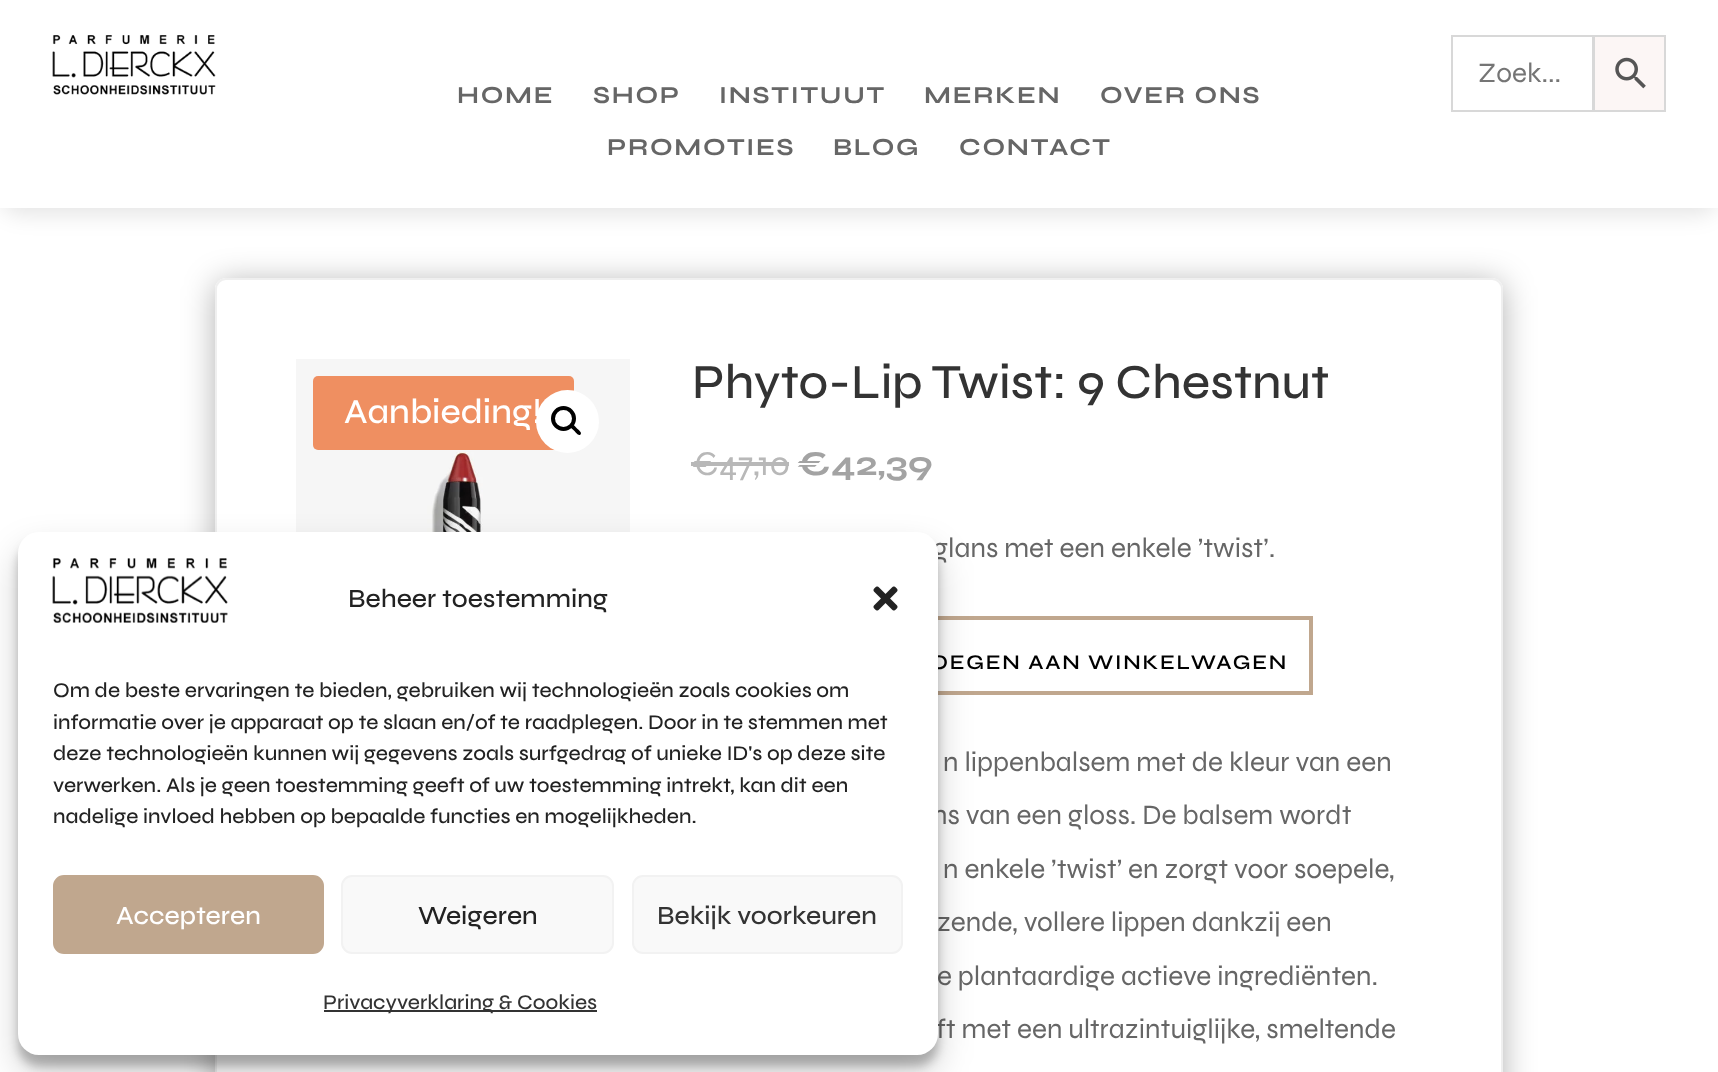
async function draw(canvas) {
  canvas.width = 1718
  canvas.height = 1072
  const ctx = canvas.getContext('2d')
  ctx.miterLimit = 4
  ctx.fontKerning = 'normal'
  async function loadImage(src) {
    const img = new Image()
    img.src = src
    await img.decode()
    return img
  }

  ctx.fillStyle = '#fff'
  ctx.fillRect(0, 0, 1718, 1072)
  ctx.fillStyle = '#0000001a'
  ctx.filter = 'blur(10.5px)'
  ctx.beginPath()
  ctx.roundRect(0, 7, 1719, 208, 21)
  ctx.fill()
  ctx.filter = 'none'
  ctx.fillStyle = '#fff'
  ctx.fillRect(0, 0, 1718, 208)
  ctx.drawImage(await loadImage('image0.png'), 52, 35, 164, 60)
  ctx.fillStyle = '#fcf6f5'
  ctx.beginPath()
  ctx.rect(1594, 36, 71, 75)
  ctx.fill()
  ctx.strokeStyle = '#d8d8d8'
  ctx.lineWidth = 2
  ctx.stroke()
  ctx.strokeRect(1452, 36, 141, 75)
  ctx.font = '28px Syne'
  ctx.fillStyle = '#757575'
  ctx.fillText('Zoek...', 1478, 82)
  ctx.drawImage(await loadImage('image1.png'), 1615, 57, 31, 32)
  ctx.letterSpacing = '1.75px'
  ctx.font = 'bold 24.5px Syne'
  ctx.fillStyle = '#666'
  ctx.fillText('HOME', 457, 103)
  ctx.fillText('SHOP', 593, 103)
  ctx.fillText('INSTITUUT', 719, 103)
  ctx.fillText('MERKEN', 924, 103)
  ctx.fillText('OVER ONS', 1100, 103)
  ctx.fillText('PROMOTIES', 607, 155)
  ctx.fillText('BLOG', 833, 155)
  ctx.fillText('CONTACT', 959, 155)
  ctx.save()
  ctx.beginPath()
  ctx.moveTo(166, 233)
  ctx.lineTo(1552, 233)
  ctx.lineTo(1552, 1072)
  ctx.lineTo(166, 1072)
  ctx.closePath()
  ctx.moveTo(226, 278)
  ctx.lineTo(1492, 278)
  ctx.bezierCurveTo(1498, 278, 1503, 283, 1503, 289)
  ctx.lineTo(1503, 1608)
  ctx.bezierCurveTo(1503, 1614, 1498, 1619, 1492, 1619)
  ctx.lineTo(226, 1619)
  ctx.bezierCurveTo(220, 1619, 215, 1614, 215, 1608)
  ctx.lineTo(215, 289)
  ctx.bezierCurveTo(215, 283, 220, 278, 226, 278)
  ctx.closePath()
  ctx.clip('evenodd')
  ctx.fillStyle = '#0000004d'
  ctx.filter = 'blur(16px)'
  ctx.beginPath()
  ctx.roundRect(215, 282, 1288, 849, 11)
  ctx.fill()
  ctx.filter = 'none'
  ctx.restore()
  ctx.beginPath()
  ctx.roundRect(216, 279, 1286, 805, 10)
  ctx.strokeStyle = '#efefef'
  ctx.stroke()
  ctx.drawImage(await loadImage('image2.png'), 296, 359, 334, 173)
  ctx.fillStyle = '#ef8f61'
  ctx.beginPath()
  ctx.roundRect(313, 376, 261, 74, 5)
  ctx.fill()
  ctx.fillStyle = '#fff'
  ctx.beginPath()
  ctx.arc(567.5, 421.5, 31.5, 0, 2 * Math.PI)
  ctx.fill()
  ctx.beginPath()
  ctx.arc(563.5, 418.5, 10.5, 0, 2 * Math.PI)
  ctx.strokeStyle = '#000'
  ctx.lineWidth = 4
  ctx.stroke()
  ctx.fillStyle = '#000'
  ctx.beginPath()
  ctx.moveTo(570.5, 424.5)
  ctx.bezierCurveTo(572.5, 422.5, 576, 427.5, 577, 428.5)
  ctx.bezierCurveTo(578, 429.5, 582.5, 432.5, 580.5, 434.5)
  ctx.bezierCurveTo(578.5, 436.5, 575.5, 432, 574.5, 431)
  ctx.bezierCurveTo(573.5, 430, 568.5, 426.5, 570.5, 424.5)
  ctx.closePath()
  ctx.fill()
  ctx.letterSpacing = '0px'
  ctx.font = '500 35px Syne'
  ctx.fillStyle = '#fff'
  ctx.fillText('Aanbieding!', 344, 423)
  ctx.font = '500 49px Syne'
  ctx.fillStyle = '#333'
  ctx.fillText('Phyto-Lip Twist: 9 Chestnut', 692, 398)
  ctx.font = '35px Syne'
  ctx.fillStyle = '#b8b8b8'
  ctx.fillText('€47,10', 692, 475)
  ctx.fillRect(691, 462, 98, 4)
  ctx.font = 'bold 35px Syne'
  ctx.fillStyle = '#a3a3a3'
  ctx.fillText('€42,39', 797, 475)
  ctx.font = '28px Syne'
  ctx.fillStyle = '#666'
  ctx.fillText('glans met een enkele ’twist’.', 933, 557)
  ctx.beginPath()
  ctx.rect(842, 618, 469, 75)
  ctx.strokeStyle = '#c0a78e'
  ctx.stroke()
  ctx.letterSpacing = '1.75px'
  ctx.font = '600 21px Syne'
  ctx.fillStyle = '#000'
  ctx.fillText('OEGEN AAN WINKELWAGEN', 930, 669)
  ctx.letterSpacing = '0px'
  ctx.font = '28px Syne'
  ctx.fillStyle = '#666'
  ctx.fillText('n lippenbalsem met de kleur van een', 943, 771)
  ctx.fillText('ns van een gloss. De balsem wordt', 932, 824)
  ctx.fillText('n enkele ’twist’ en zorgt voor soepele,', 943, 878)
  ctx.fillText('zende, vollere lippen dankzij een', 937, 931)
  ctx.fillText('e plantaardige actieve ingrediënten.', 937, 985)
  ctx.fillText('ft met een ultrazintuiglijke, smeltende', 936, 1038)
  ctx.fillStyle = '#0000003b'
  ctx.filter = 'blur(5px)'
  ctx.beginPath()
  ctx.roundRect(18, 543, 920, 523, 21)
  ctx.fill()
  ctx.filter = 'none'
  ctx.fillStyle = '#00000030'
  ctx.filter = 'blur(17.5px)'
  ctx.beginPath()
  ctx.roundRect(18, 550, 920, 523, 21)
  ctx.fill()
  ctx.filter = 'none'
  ctx.fillStyle = '#fff'
  ctx.beginPath()
  ctx.roundRect(18, 532, 920, 523, 21)
  ctx.fill()
  ctx.drawImage(await loadImage('image3.png'), 52, 558, 176, 65)
  ctx.font = '500 26.25px Syne'
  ctx.fillStyle = '#222'
  ctx.fillText('Beheer toestemming', 348, 607)
  ctx.drawImage(await loadImage('image4.png'), 873, 586, 25, 25)
  ctx.font = '500 21px Syne'
  ctx.fillText('Om de beste ervaringen te bieden, gebruiken wij technologieën zoals cookies om', 53, 697)
  ctx.fillText('informatie over je apparaat op te slaan en/of te raadplegen. Door in te stemmen met', 53, 729)
  ctx.fillText('deze technologieën kunnen wij gegevens zoals surfgedrag of unieke ID\'s op deze site', 53, 760)
  ctx.fillText('verwerken. Als je geen toestemming geeft of uw toestemming intrekt, kan dit een', 53, 792)
  ctx.fillText('nadelige invloed hebben op bepaalde functies en mogelijkheden.', 53, 823)
  ctx.fillStyle = '#c0a78e'
  ctx.beginPath()
  ctx.roundRect(54, 876, 269, 77, 10)
  ctx.fill()
  ctx.lineWidth = 2
  ctx.stroke()
  ctx.font = '500 26.25px Syne'
  ctx.fillStyle = '#fff'
  ctx.fillText('Accepteren', 116, 924)
  ctx.fillStyle = '#f9f9f9'
  ctx.beginPath()
  ctx.roundRect(342, 876, 271, 77, 10)
  ctx.fill()
  ctx.strokeStyle = '#f2f2f2'
  ctx.stroke()
  ctx.fillStyle = '#222'
  ctx.fillText('Weigeren', 418, 924)
  ctx.fillStyle = '#f9f9f9'
  ctx.beginPath()
  ctx.roundRect(633, 876, 269, 77, 10)
  ctx.fill()
  ctx.stroke()
  ctx.fillStyle = '#333'
  ctx.fillText('Bekijk voorkeuren', 657, 924)
  ctx.fillRect(324, 1010, 273, 2)
  ctx.font = '500 21px Syne'
  ctx.fillText('Privacyverklaring & Cookies', 323, 1009)
}

draw(document.querySelector('canvas'))
